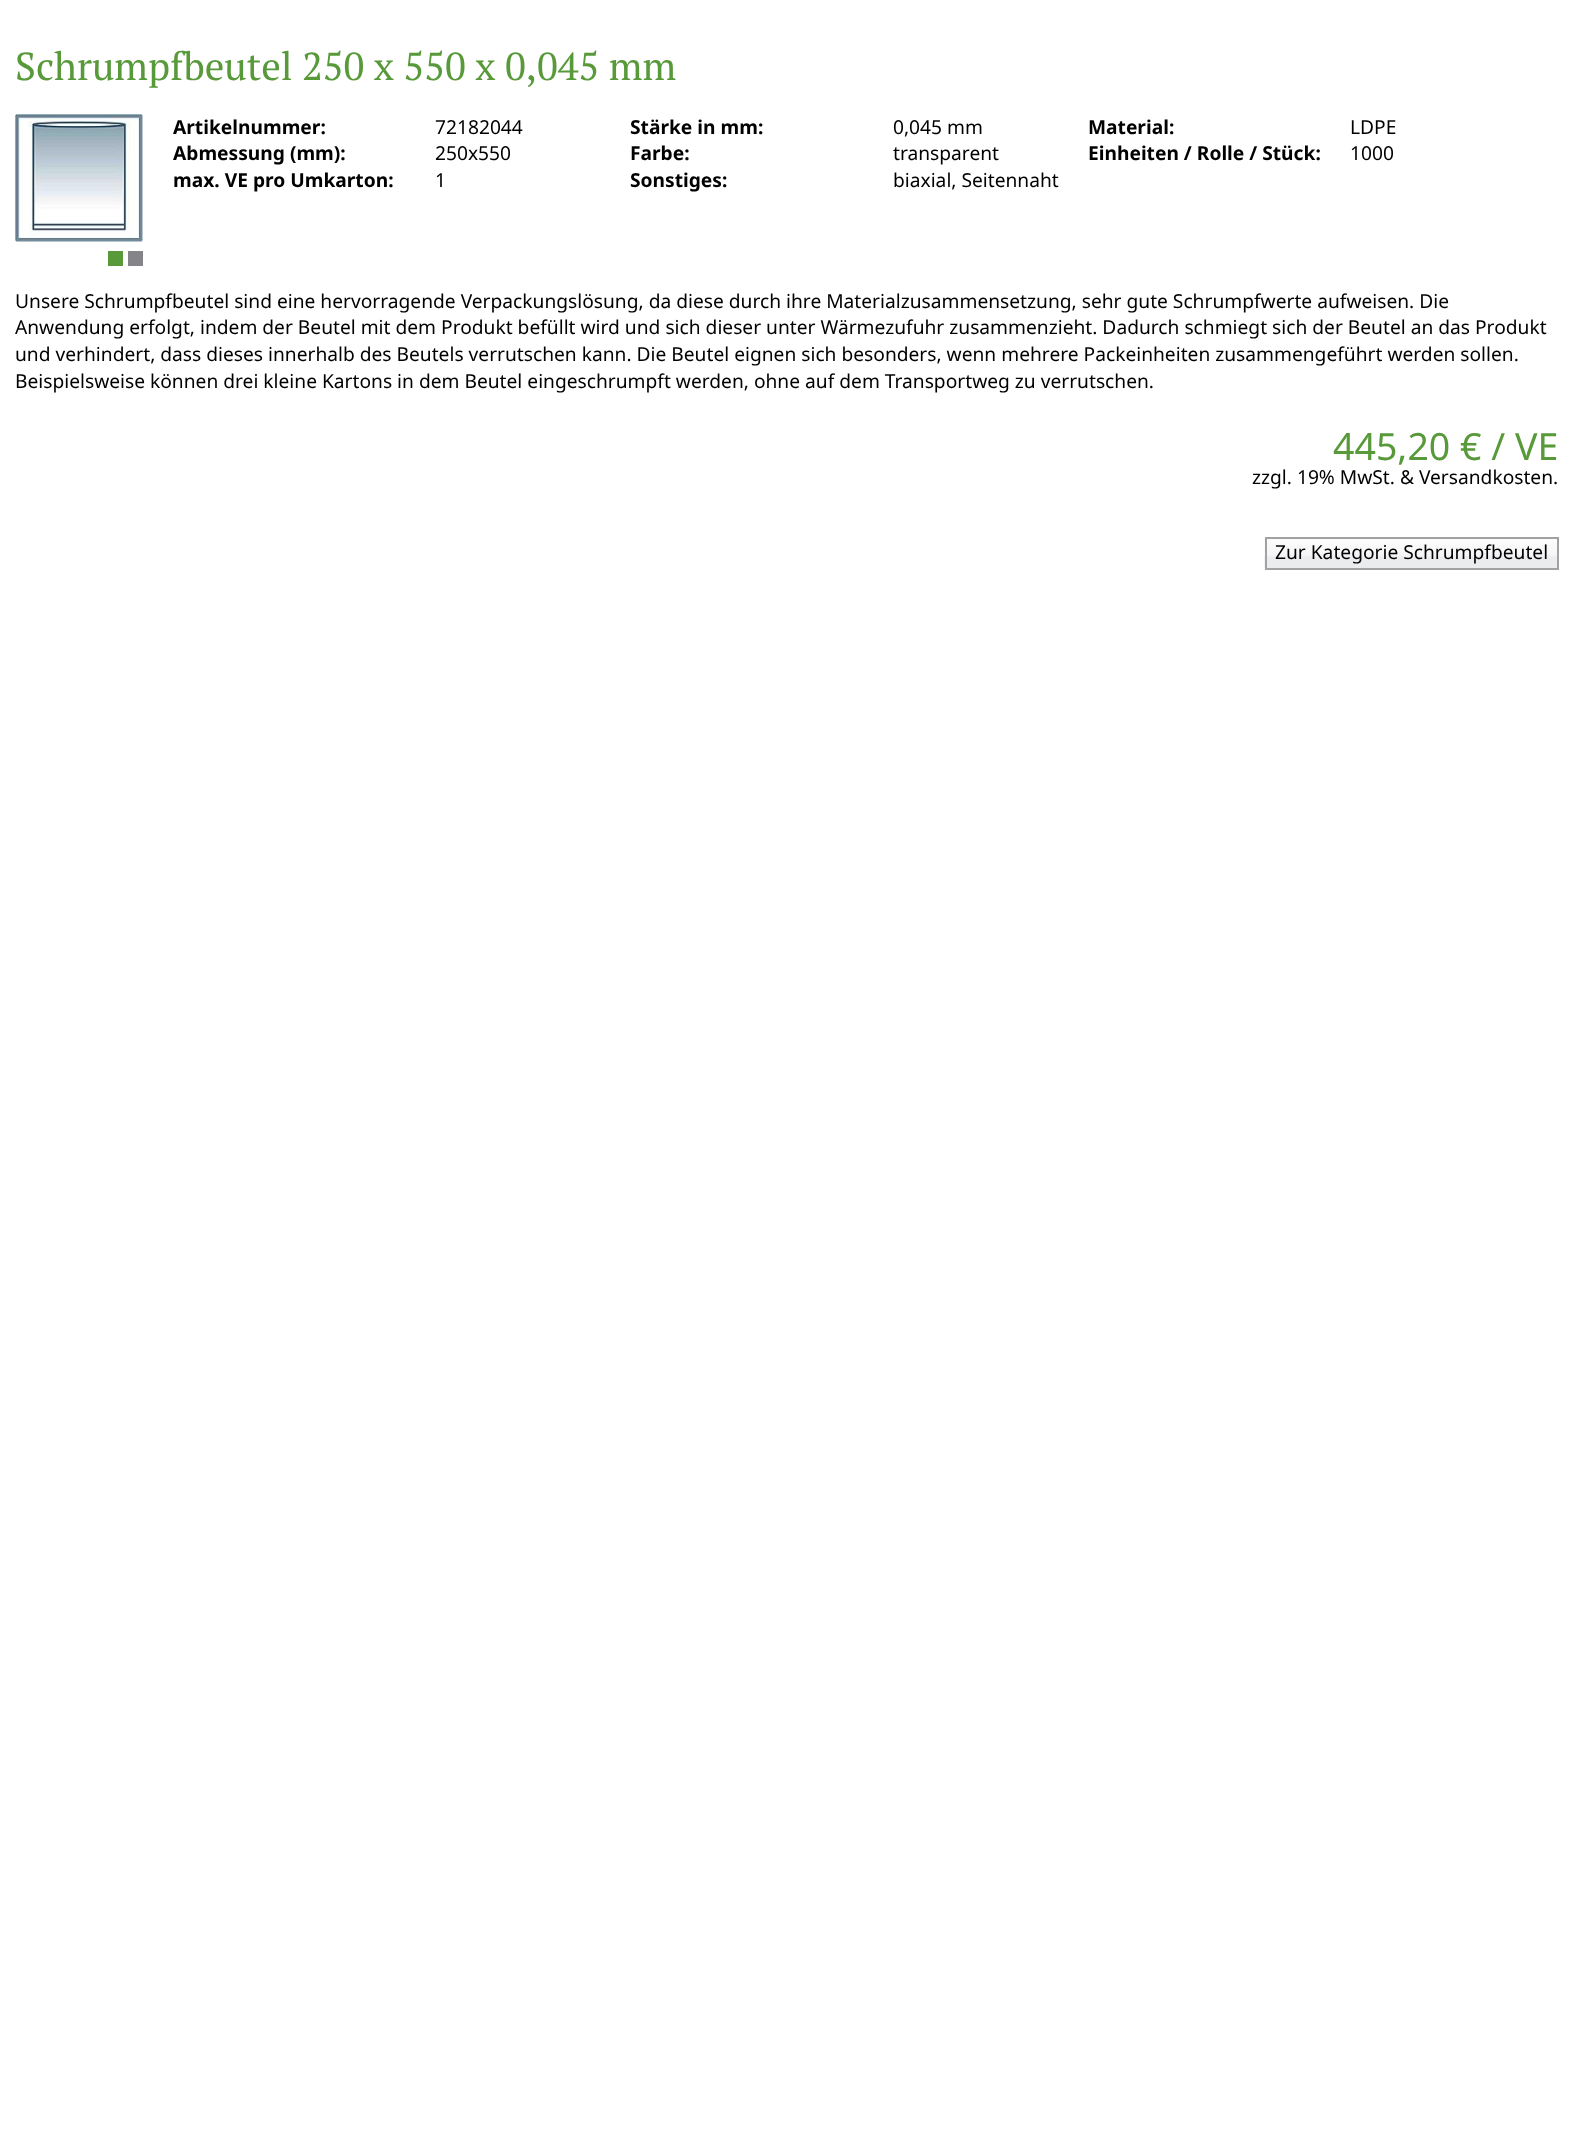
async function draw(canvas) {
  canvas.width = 1573
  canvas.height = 2147
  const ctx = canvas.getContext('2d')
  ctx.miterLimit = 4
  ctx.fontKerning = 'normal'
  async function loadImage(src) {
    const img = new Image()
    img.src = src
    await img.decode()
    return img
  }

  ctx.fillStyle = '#fff'
  ctx.fillRect(0, 0, 1573, 2147)
  ctx.font = '39px PT Serif'
  ctx.fillStyle = '#58993a'
  ctx.fillText('Schrumpfbeutel 250 x 550 x 0,045 mm', 15, 80)
  ctx.drawImage(await loadImage('image0.png'), 15, 114, 128, 128)
  ctx.fillRect(108, 251, 15, 15)
  ctx.fillStyle = '#858489'
  ctx.fillRect(128, 251, 15, 15)
  ctx.font = 'bold 19.2px Noto Sans'
  ctx.fillStyle = '#000'
  ctx.fillText('Artikelnummer:', 173, 134)
  ctx.font = '19.2px Noto Sans'
  ctx.fillText('72182044', 435, 134)
  ctx.font = 'bold 19.2px Noto Sans'
  ctx.fillText('Stärke in mm:', 630, 134)
  ctx.font = '19.2px Noto Sans'
  ctx.fillText('0,045 mm', 893, 134)
  ctx.font = 'bold 19.2px Noto Sans'
  ctx.fillText('Material:', 1088, 134)
  ctx.font = '19.2px Noto Sans'
  ctx.fillText('LDPE', 1350, 134)
  ctx.font = 'bold 19.2px Noto Sans'
  ctx.fillText('Abmessung (mm):', 173, 160)
  ctx.font = '19.2px Noto Sans'
  ctx.fillText('250x550', 435, 160)
  ctx.font = 'bold 19.2px Noto Sans'
  ctx.fillText('Farbe:', 630, 160)
  ctx.font = '19.2px Noto Sans'
  ctx.fillText('transparent', 893, 160)
  ctx.font = 'bold 19.2px Noto Sans'
  ctx.fillText('Einheiten / Rolle / Stück:', 1088, 160)
  ctx.font = '19.2px Noto Sans'
  ctx.fillText('1000', 1350, 160)
  ctx.font = 'bold 19.2px Noto Sans'
  ctx.fillText('max. VE pro Umkarton:', 173, 187)
  ctx.font = '19.2px Noto Sans'
  ctx.fillText('1', 435, 187)
  ctx.font = 'bold 19.2px Noto Sans'
  ctx.fillText('Sonstiges:', 630, 187)
  ctx.font = '19.2px Noto Sans'
  ctx.fillText('biaxial, Seitennaht', 893, 187)
  ctx.fillText('Unsere Schrumpfbeutel sind eine hervorragende Verpackungslösung, da diese durch ihre Materialzusammensetzung, sehr gute Schrumpfwerte aufweisen. Die', 15, 308)
  ctx.fillText('Anwendung erfolgt, indem der Beutel mit dem Produkt befüllt wird und sich dieser unter Wärmezufuhr zusammenzieht. Dadurch schmiegt sich der Beutel an das Produkt', 15, 334)
  ctx.fillText('und verhindert, dass dieses innerhalb des Beutels verrutschen kann. Die Beutel eignen sich besonders, wenn mehrere Packeinheiten zusammengeführt werden sollen.', 15, 361)
  ctx.fillText('Beispielsweise können drei kleine Kartons in dem Beutel eingeschrumpft werden, ohne auf dem Transportweg zu verrutschen.', 15, 388)
  ctx.font = '37.5px Noto Sans'
  ctx.fillStyle = '#58993a'
  ctx.fillText('445,20 € / VE', 1333, 460)
  ctx.font = '19.2px Noto Sans'
  ctx.fillStyle = '#000'
  ctx.fillText('zzgl. 19% MwSt. & Versandkosten.', 1252, 484)
  ctx.drawImage(await loadImage('image1.png'), 1264, 538, 293, 31)
  ctx.strokeStyle = '#a2a1a4'
  ctx.lineWidth = 2
  ctx.strokeRect(1266, 538, 292, 31)
  ctx.fillText('Zur Kategorie Schrumpfbeutel', 1275, 559)
}

draw(document.querySelector('canvas'))
